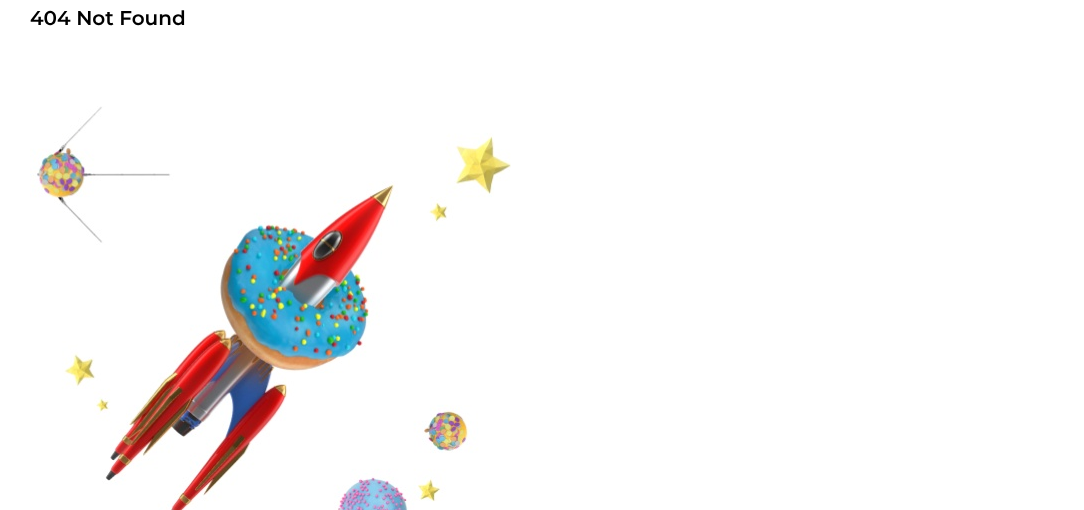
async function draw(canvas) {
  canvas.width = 1084
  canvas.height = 510
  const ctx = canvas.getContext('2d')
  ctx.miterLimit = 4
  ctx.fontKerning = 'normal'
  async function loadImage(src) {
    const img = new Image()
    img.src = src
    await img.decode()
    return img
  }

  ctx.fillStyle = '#fff'
  ctx.fillRect(0, 0, 1084, 510)
  ctx.font = '600 20px Montserrat'
  ctx.fillStyle = '#000'
  ctx.fillText('404 Not Found', 30, 25)
  ctx.drawImage(await loadImage('image0.png'), 30, 106, 481, 404)
}

draw(document.querySelector('canvas'))
